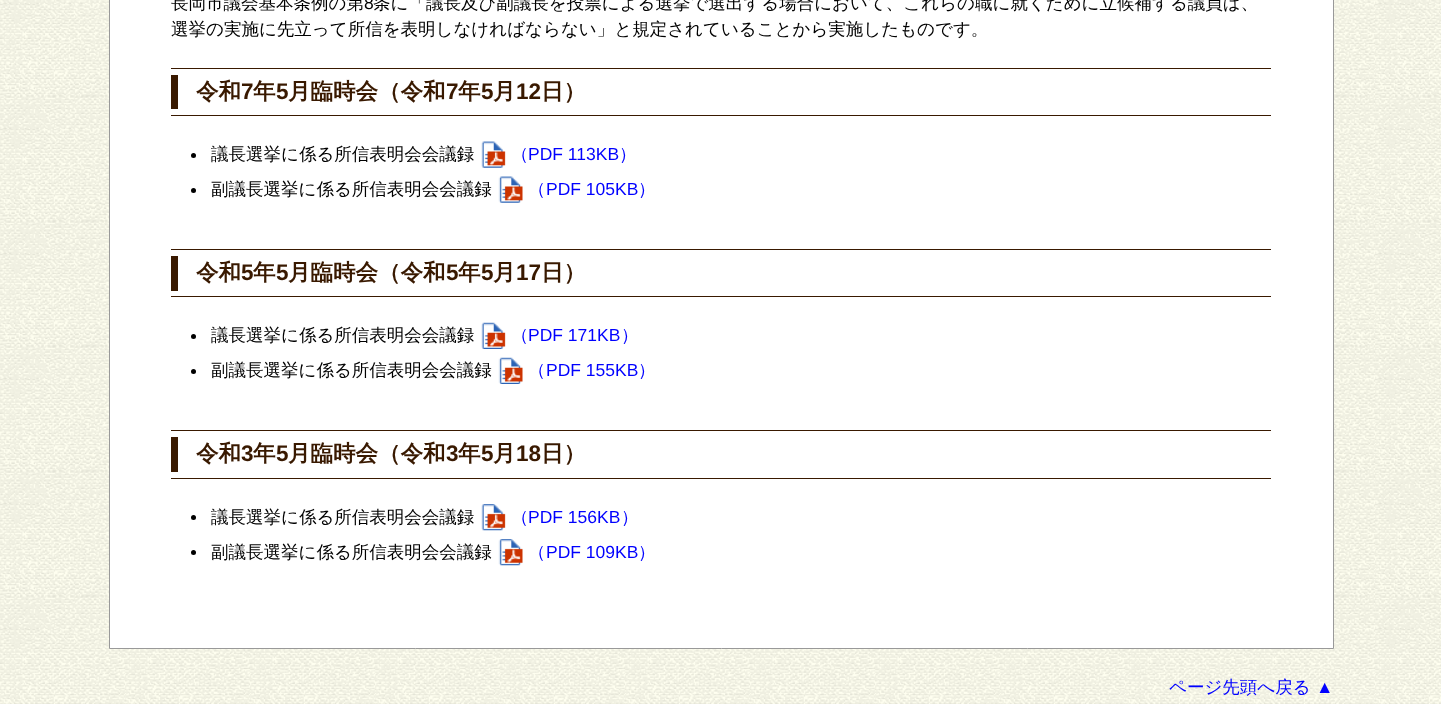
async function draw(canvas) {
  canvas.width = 1441
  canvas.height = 704
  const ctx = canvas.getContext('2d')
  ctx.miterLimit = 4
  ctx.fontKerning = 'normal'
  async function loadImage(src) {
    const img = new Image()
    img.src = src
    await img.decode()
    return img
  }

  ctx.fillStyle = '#fff'
  ctx.fillRect(0, 0, 1441, 704)
  ctx.drawImage(await loadImage('image0.png'), 0, 0, 1441, 704)
  ctx.beginPath()
  ctx.rect(109.5, -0.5, 1224, 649)
  ctx.fill()
  ctx.strokeStyle = '#999'
  ctx.stroke()
  ctx.font = '500 17.5px WenQuanYi Zen Hei'
  ctx.fillStyle = '#000'
  ctx.fillText('長岡市議会基本条例の第', 171, 9)
  ctx.font = '17.5px Liberation Sans'
  ctx.fillText('8', 364, 9)
  ctx.font = '500 17.5px WenQuanYi Zen Hei'
  ctx.fillText('条に「議長及び副議長を投票による選挙で選出する場合において、これらの職に就くために立候補する議員は、', 373, 9)
  ctx.fillText('選挙の実施に先立って所信を表明しなければならない」と規定されていることから実施したものです。', 171, 35)
  ctx.fillStyle = '#391900'
  ctx.fillRect(171, 68, 1100, 1)
  ctx.fillRect(171, 115, 1100, 1)
  ctx.fillRect(171, 75, 7, 34)
  ctx.font = 'bold 22.5px WenQuanYi Zen Hei'
  ctx.fillText('令和', 196, 99)
  ctx.font = 'bold 22.5px Liberation Sans'
  ctx.fillText('7', 241, 99)
  ctx.font = 'bold 22.5px WenQuanYi Zen Hei'
  ctx.fillText('年', 253, 99)
  ctx.font = 'bold 22.5px Liberation Sans'
  ctx.fillText('5', 276, 99)
  ctx.font = 'bold 22.5px WenQuanYi Zen Hei'
  ctx.fillText('月臨時会（令和', 288, 99)
  ctx.font = 'bold 22.5px Liberation Sans'
  ctx.fillText('7', 446, 99)
  ctx.font = 'bold 22.5px WenQuanYi Zen Hei'
  ctx.fillText('年', 458, 99)
  ctx.font = 'bold 22.5px Liberation Sans'
  ctx.fillText('5', 481, 99)
  ctx.font = 'bold 22.5px WenQuanYi Zen Hei'
  ctx.fillText('月', 493, 99)
  ctx.font = 'bold 22.5px Liberation Sans'
  ctx.fillText('12', 516, 99)
  ctx.font = 'bold 22.5px WenQuanYi Zen Hei'
  ctx.fillText('日）', 541, 99)
  ctx.fillStyle = '#000'
  ctx.beginPath()
  ctx.arc(193.5, 155.5, 2.5, 0, 2 * Math.PI)
  ctx.fill()
  ctx.font = '500 17.5px WenQuanYi Zen Hei'
  ctx.fillText('議長選挙に係る所信表明会会議録', 211, 160)
  ctx.drawImage(await loadImage('image1.png'), 481, 141, 25, 27)
  ctx.fillStyle = '#00f'
  ctx.fillText('（', 511, 160)
  ctx.font = '17.5px Liberation Sans'
  ctx.fillText('PDF 113KB', 528, 160)
  ctx.font = '500 17.5px WenQuanYi Zen Hei'
  ctx.fillText('）', 619, 160)
  ctx.fillStyle = '#000'
  ctx.beginPath()
  ctx.arc(193.5, 190.5, 2.5, 0, 2 * Math.PI)
  ctx.fill()
  ctx.fillText('副議長選挙に係る所信表明会会議録', 211, 195)
  ctx.drawImage(await loadImage('image2.png'), 498, 176, 25, 27)
  ctx.fillStyle = '#00f'
  ctx.fillText('（', 528, 195)
  ctx.font = '17.5px Liberation Sans'
  ctx.fillText('PDF 105KB', 546, 195)
  ctx.font = '500 17.5px WenQuanYi Zen Hei'
  ctx.fillText('）', 638, 195)
  ctx.fillStyle = '#391900'
  ctx.fillRect(171, 249, 1100, 1)
  ctx.fillRect(171, 296, 1100, 1)
  ctx.fillRect(171, 256, 7, 35)
  ctx.font = 'bold 22.5px WenQuanYi Zen Hei'
  ctx.fillText('令和', 196, 280)
  ctx.font = 'bold 22.5px Liberation Sans'
  ctx.fillText('5', 241, 280)
  ctx.font = 'bold 22.5px WenQuanYi Zen Hei'
  ctx.fillText('年', 253, 280)
  ctx.font = 'bold 22.5px Liberation Sans'
  ctx.fillText('5', 276, 280)
  ctx.font = 'bold 22.5px WenQuanYi Zen Hei'
  ctx.fillText('月臨時会（令和', 288, 280)
  ctx.font = 'bold 22.5px Liberation Sans'
  ctx.fillText('5', 446, 280)
  ctx.font = 'bold 22.5px WenQuanYi Zen Hei'
  ctx.fillText('年', 458, 280)
  ctx.font = 'bold 22.5px Liberation Sans'
  ctx.fillText('5', 481, 280)
  ctx.font = 'bold 22.5px WenQuanYi Zen Hei'
  ctx.fillText('月', 493, 280)
  ctx.font = 'bold 22.5px Liberation Sans'
  ctx.fillText('17', 516, 280)
  ctx.font = 'bold 22.5px WenQuanYi Zen Hei'
  ctx.fillText('日）', 541, 280)
  ctx.fillStyle = '#000'
  ctx.beginPath()
  ctx.arc(193.5, 336.5, 2.5, 0, 2 * Math.PI)
  ctx.fill()
  ctx.font = '500 17.5px WenQuanYi Zen Hei'
  ctx.fillText('議長選挙に係る所信表明会会議録', 211, 341)
  ctx.drawImage(await loadImage('image3.png'), 481, 322, 25, 27)
  ctx.fillStyle = '#00f'
  ctx.fillText('（', 511, 341)
  ctx.font = '17.5px Liberation Sans'
  ctx.fillText('PDF 171KB', 528, 341)
  ctx.font = '500 17.5px WenQuanYi Zen Hei'
  ctx.fillText('）', 621, 341)
  ctx.fillStyle = '#000'
  ctx.beginPath()
  ctx.arc(193.5, 371.5, 2.5, 0, 2 * Math.PI)
  ctx.fill()
  ctx.fillText('副議長選挙に係る所信表明会会議録', 211, 376)
  ctx.drawImage(await loadImage('image4.png'), 498, 357, 25, 27)
  ctx.fillStyle = '#00f'
  ctx.fillText('（', 528, 376)
  ctx.font = '17.5px Liberation Sans'
  ctx.fillText('PDF 155KB', 546, 376)
  ctx.font = '500 17.5px WenQuanYi Zen Hei'
  ctx.fillText('）', 638, 376)
  ctx.fillStyle = '#391900'
  ctx.fillRect(171, 430, 1100, 1)
  ctx.fillRect(171, 478, 1100, 1)
  ctx.fillRect(171, 437, 7, 35)
  ctx.font = 'bold 22.5px WenQuanYi Zen Hei'
  ctx.fillText('令和', 196, 461)
  ctx.font = 'bold 22.5px Liberation Sans'
  ctx.fillText('3', 241, 461)
  ctx.font = 'bold 22.5px WenQuanYi Zen Hei'
  ctx.fillText('年', 253, 461)
  ctx.font = 'bold 22.5px Liberation Sans'
  ctx.fillText('5', 276, 461)
  ctx.font = 'bold 22.5px WenQuanYi Zen Hei'
  ctx.fillText('月臨時会（令和', 288, 461)
  ctx.font = 'bold 22.5px Liberation Sans'
  ctx.fillText('3', 446, 461)
  ctx.font = 'bold 22.5px WenQuanYi Zen Hei'
  ctx.fillText('年', 458, 461)
  ctx.font = 'bold 22.5px Liberation Sans'
  ctx.fillText('5', 481, 461)
  ctx.font = 'bold 22.5px WenQuanYi Zen Hei'
  ctx.fillText('月', 493, 461)
  ctx.font = 'bold 22.5px Liberation Sans'
  ctx.fillText('18', 516, 461)
  ctx.font = 'bold 22.5px WenQuanYi Zen Hei'
  ctx.fillText('日）', 541, 461)
  ctx.fillStyle = '#000'
  ctx.beginPath()
  ctx.arc(193.5, 517.5, 2.5, 0, 2 * Math.PI)
  ctx.fill()
  ctx.font = '500 17.5px WenQuanYi Zen Hei'
  ctx.fillText('議長選挙に係る所信表明会会議録', 211, 523)
  ctx.drawImage(await loadImage('image5.png'), 481, 504, 25, 27)
  ctx.fillStyle = '#00f'
  ctx.fillText('（', 511, 523)
  ctx.font = '17.5px Liberation Sans'
  ctx.fillText('PDF 156KB', 528, 523)
  ctx.font = '500 17.5px WenQuanYi Zen Hei'
  ctx.fillText('）', 621, 523)
  ctx.fillStyle = '#000'
  ctx.beginPath()
  ctx.arc(193.5, 552.5, 2.5, 0, 2 * Math.PI)
  ctx.fill()
  ctx.fillText('副議長選挙に係る所信表明会会議録', 211, 558)
  ctx.drawImage(await loadImage('image6.png'), 498, 539, 25, 27)
  ctx.fillStyle = '#00f'
  ctx.fillText('（', 528, 558)
  ctx.font = '17.5px Liberation Sans'
  ctx.fillText('PDF 109KB', 546, 558)
  ctx.font = '500 17.5px WenQuanYi Zen Hei'
  ctx.fillText('）', 638, 558)
  ctx.fillText('ページ先頭へ戻る', 1169, 693)
  ctx.font = '17.5px Liberation Sans'
  ctx.fillText('▲', 1316, 693)
}

draw(document.querySelector('canvas'))
